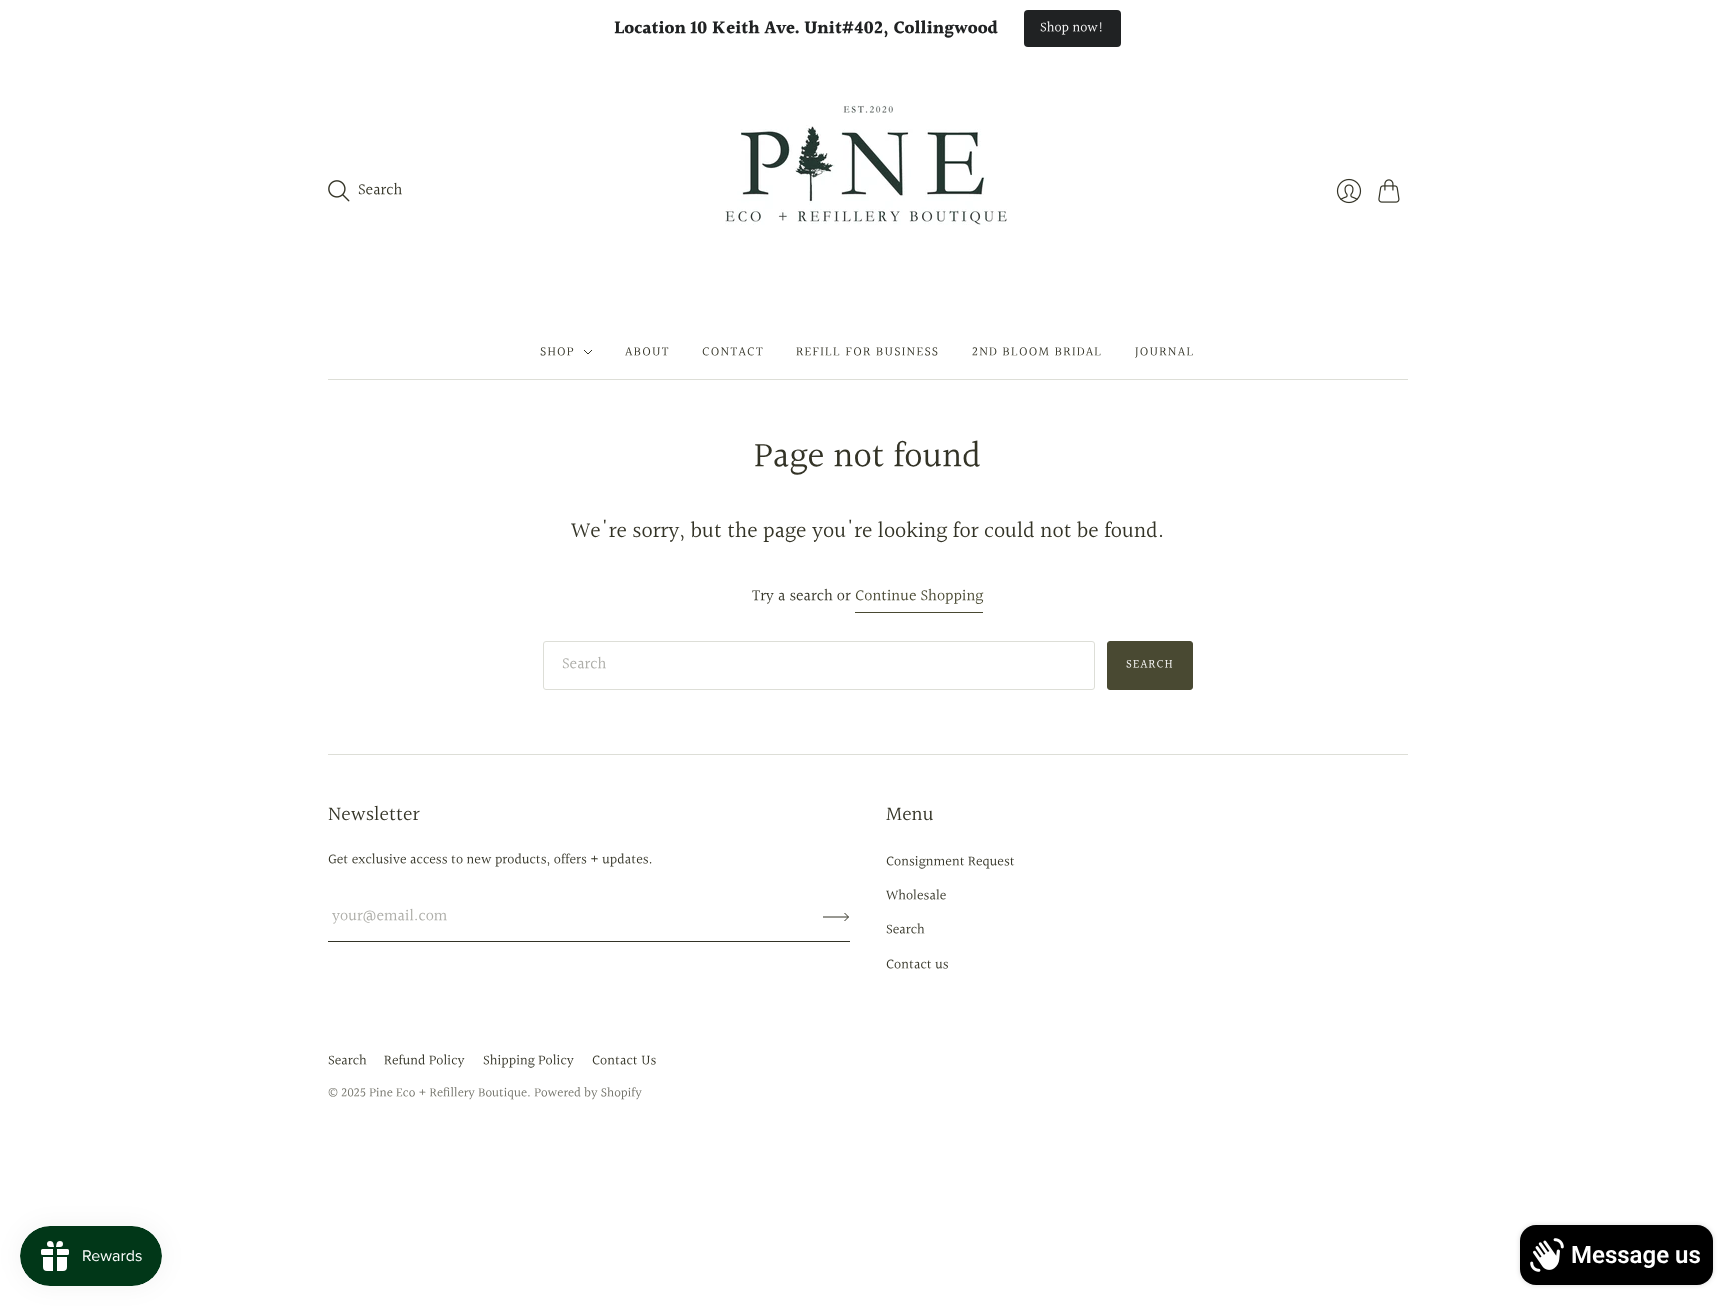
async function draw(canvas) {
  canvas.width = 1735
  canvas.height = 1306
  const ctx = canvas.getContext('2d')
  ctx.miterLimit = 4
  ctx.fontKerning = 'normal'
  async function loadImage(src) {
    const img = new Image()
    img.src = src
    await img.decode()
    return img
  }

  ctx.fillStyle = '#fff'
  ctx.fillRect(0, 0, 1735, 1306)
  ctx.font = 'bold 18px Halant'
  ctx.fillStyle = '#202223'
  ctx.fillText('Location 10 Keith Ave. Unit#402, Collingwood', 614, 34)
  ctx.beginPath()
  ctx.roundRect(1024, 10, 97, 37, 4)
  ctx.fill()
  ctx.font = '14px Halant'
  ctx.fillStyle = '#fff'
  ctx.fillText('Shop now!', 1040, 32)
  ctx.drawImage(await loadImage('image0.png'), 328, 180, 22, 22)
  ctx.font = '16px Halant'
  ctx.fillStyle = '#333326'
  ctx.fillText('Search', 358, 195)
  ctx.drawImage(await loadImage('image1.png'), 1336, 178, 26, 26)
  ctx.drawImage(await loadImage('image2.png'), 1378, 179, 22, 24)
  ctx.fillStyle = '#ddded7'
  ctx.fillRect(328, 379, 1080, 1)
  ctx.drawImage(await loadImage('image3.png'), 725, 105, 282, 120)
  ctx.letterSpacing = '1.25px'
  ctx.font = '13px Halant'
  ctx.fillStyle = '#333326'
  ctx.fillText('SHOP', 540, 356)
  ctx.beginPath()
  ctx.moveTo(584, 350)
  ctx.lineTo(588, 354)
  ctx.lineTo(592, 350)
  ctx.strokeStyle = '#333326'
  ctx.stroke()
  ctx.fillText('ABOUT', 625, 356)
  ctx.fillText('CONTACT', 702, 356)
  ctx.fillText('REFILL FOR BUSINESS', 796, 356)
  ctx.fillText('2ND BLOOM BRIDAL', 972, 356)
  ctx.fillText('JOURNAL', 1135, 356)
  ctx.letterSpacing = '0px'
  ctx.font = '36px Halant'
  ctx.fillText('Page not found', 754, 468)
  ctx.font = '22px Halant'
  ctx.fillText('We\'re sorry, but the page you\'re looking for could not be found.', 571, 538)
  ctx.font = '16px Halant'
  ctx.fillText('Try a search or', 752, 601)
  ctx.fillStyle = '#494932'
  ctx.fillText('Continue Shopping', 855, 601)
  ctx.fillRect(855, 612, 128, 1)
  ctx.beginPath()
  ctx.roundRect(543.5, 641.5, 551, 48, 2.5)
  ctx.strokeStyle = '#ddded7'
  ctx.stroke()
  ctx.fillStyle = '#adada8'
  ctx.fillText('Search', 562, 669)
  ctx.fillStyle = '#494932'
  ctx.beginPath()
  ctx.roundRect(1107.5, 641.5, 85, 48, 2.5)
  ctx.fill()
  ctx.strokeStyle = '#494932'
  ctx.stroke()
  ctx.letterSpacing = '1.25px'
  ctx.font = '12px Halant'
  ctx.fillStyle = '#fff'
  ctx.fillText('SEARCH', 1126, 668)
  ctx.fillStyle = '#ddded7'
  ctx.fillRect(328, 754, 1080, 1)
  ctx.letterSpacing = '0px'
  ctx.font = '20px Halant'
  ctx.fillStyle = '#333326'
  ctx.fillText('Newsletter', 328, 821)
  ctx.font = '14px Halant'
  ctx.fillText('Get exclusive access to new products, offers + updates.', 328, 864)
  ctx.fillRect(328, 941, 522, 1)
  ctx.font = '16px Halant'
  ctx.fillStyle = '#adada8'
  ctx.fillText('your@email.com', 332, 921)
  ctx.beginPath()
  ctx.moveTo(823, 917)
  ctx.lineTo(848.5, 917)
  ctx.moveTo(848.5, 917)
  ctx.lineTo(844.5, 913)
  ctx.moveTo(848.5, 917)
  ctx.lineTo(844.5, 921)
  ctx.strokeStyle = '#333326'
  ctx.stroke()
  ctx.font = '20px Halant'
  ctx.fillStyle = '#333326'
  ctx.fillText('Menu', 886, 821)
  ctx.font = '14px Halant'
  ctx.fillText('Consignment Request', 886, 866)
  ctx.fillText('Wholesale', 886, 900)
  ctx.fillText('Search', 886, 934)
  ctx.fillText('Contact us', 886, 969)
  ctx.fillText('Search', 328, 1065)
  ctx.fillText('Refund Policy', 384, 1065)
  ctx.fillText('Shipping Policy', 483, 1065)
  ctx.fillText('Contact Us', 592, 1065)
  ctx.font = '13px Halant'
  ctx.fillStyle = '#707067'
  ctx.fillText('© 2025 Pine Eco + Refillery Boutique. Powered by Shopify', 328, 1097)
  ctx.fillStyle = '#0000000d'
  ctx.filter = 'blur(12.5px)'
  ctx.beginPath()
  ctx.roundRect(20, 1226, 142, 60, 30)
  ctx.fill()
  ctx.filter = 'none'
  ctx.drawImage(await loadImage('image4.png'), 20, 1226, 142, 60)
  ctx.fillStyle = '#00000026'
  ctx.filter = 'blur(2.5px)'
  ctx.beginPath()
  ctx.roundRect(1520, 1225, 193, 60, 16)
  ctx.fill()
  ctx.filter = 'none'
  ctx.fillStyle = '#000'
  ctx.beginPath()
  ctx.roundRect(1520, 1225, 193, 60, 16)
  ctx.fill()
  ctx.drawImage(await loadImage('image5.png'), 1530, 1238, 34, 34)
  ctx.font = '600 24px Roboto'
  ctx.fillStyle = '#fff'
  ctx.fillText('Message us', 1571, 1263)
}

draw(document.querySelector('canvas'))
